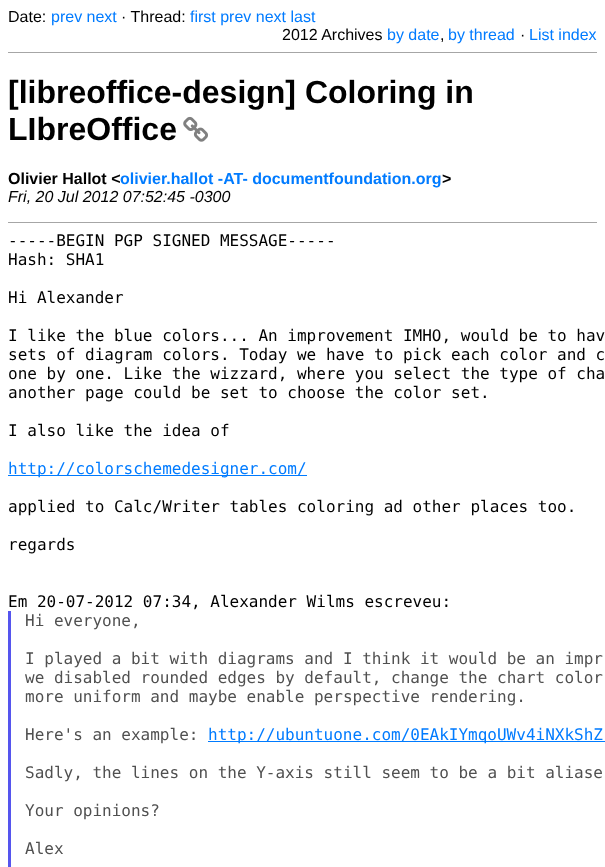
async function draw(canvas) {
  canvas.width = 605
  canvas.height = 867
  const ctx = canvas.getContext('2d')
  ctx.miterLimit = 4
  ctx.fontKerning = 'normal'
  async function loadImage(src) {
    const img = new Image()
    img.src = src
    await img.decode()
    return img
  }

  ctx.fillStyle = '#fff'
  ctx.fillRect(0, 0, 605, 867)
  ctx.font = '16px Liberation Sans'
  ctx.fillStyle = '#000'
  ctx.fillText('Date:', 8, 22)
  ctx.fillStyle = '#007bff'
  ctx.fillText('prev next', 51, 22)
  ctx.fillStyle = '#000'
  ctx.fillText('· Thread:', 121, 22)
  ctx.fillStyle = '#007bff'
  ctx.fillText('first prev next last', 190, 22)
  ctx.fillStyle = '#000'
  ctx.fillText('2012 Archives', 282, 40)
  ctx.fillStyle = '#007bff'
  ctx.fillText('by date', 387, 40)
  ctx.fillText('by thread', 448, 40)
  ctx.fillStyle = '#000'
  ctx.fillText('·', 520, 40)
  ctx.fillStyle = '#007bff'
  ctx.fillText('List index', 529, 40)
  ctx.fillStyle = '#000'
  ctx.fillText(',', 440, 40)
  ctx.fillStyle = '#a6a6a6'
  ctx.fillRect(8, 52, 589, 1)
  ctx.font = 'bold 32px Liberation Sans'
  ctx.fillStyle = '#000'
  ctx.fillText('[libreoffice-design] Coloring in', 8, 103)
  ctx.fillText('LIbreOffice', 8, 140)
  ctx.drawImage(await loadImage('image0.png'), 183, 116, 25, 26)
  ctx.font = 'bold 16px Liberation Sans'
  ctx.fillText('Olivier Hallot <', 8, 184)
  ctx.fillStyle = '#007bff'
  ctx.fillText('olivier.hallot -AT- documentfoundation.org', 120, 184)
  ctx.fillStyle = '#000'
  ctx.fillText('>', 442, 184)
  ctx.font = 'italic 16px Liberation Sans'
  ctx.fillText('Fri, 20 Jul 2012 07:52:45 -0300', 8, 202)
  ctx.fillStyle = '#a6a6a6'
  ctx.fillRect(8, 222, 589, 1)
  ctx.font = '16px DejaVu Sans Mono'
  ctx.fillStyle = '#000'
  ctx.fillText('-----BEGIN PGP SIGNED MESSAGE-----', 8, 246)
  ctx.fillText('Hash: SHA1', 8, 265)
  ctx.fillText('Hi Alexander', 8, 303)
  ctx.fillText('I like the blue colors... An improvement IMHO, would be to hav', 8, 341)
  ctx.fillText('sets of diagram colors. Today we have to pick each color and c', 8, 360)
  ctx.fillText('one by one. Like the wizzard, where you select the type of cha', 8, 379)
  ctx.fillText('another page could be set to choose the color set.', 8, 398)
  ctx.fillText('I also like the idea of', 8, 436)
  ctx.fillStyle = '#007bff'
  ctx.fillRect(8, 475, 299, 1)
  ctx.fillText('http://colorschemedesigner.com/', 8, 474)
  ctx.fillStyle = '#000'
  ctx.fillText('applied to Calc/Writer tables coloring ad other places too.', 8, 512)
  ctx.fillText('regards', 8, 550)
  ctx.fillText('Em 20-07-2012 07:34, Alexander Wilms escreveu:', 8, 607)
  ctx.fillStyle = '#55e'
  ctx.fillRect(8, 611, 3, 256)
  ctx.fillStyle = '#505050'
  ctx.fillText('Hi everyone,', 25, 626)
  ctx.fillText('I played a bit with diagrams and I think it would be an impr', 25, 664)
  ctx.fillText('we disabled rounded edges by default, change the chart color', 25, 683)
  ctx.fillText('more uniform and maybe enable perspective rendering.', 25, 702)
  ctx.fillText('Here\'s an example:', 25, 740)
  ctx.fillStyle = '#007bff'
  ctx.fillRect(208, 741, 397, 1)
  ctx.fillText('http://ubuntuone.com/0EAkIYmqoUWv4iNXkShZ', 208, 740)
  ctx.fillStyle = '#505050'
  ctx.fillText('Sadly, the lines on the Y-axis still seem to be a bit aliase', 25, 778)
  ctx.fillText('Your opinions?', 25, 816)
  ctx.fillText('Alex', 25, 854)
}

draw(document.querySelector('canvas'))
